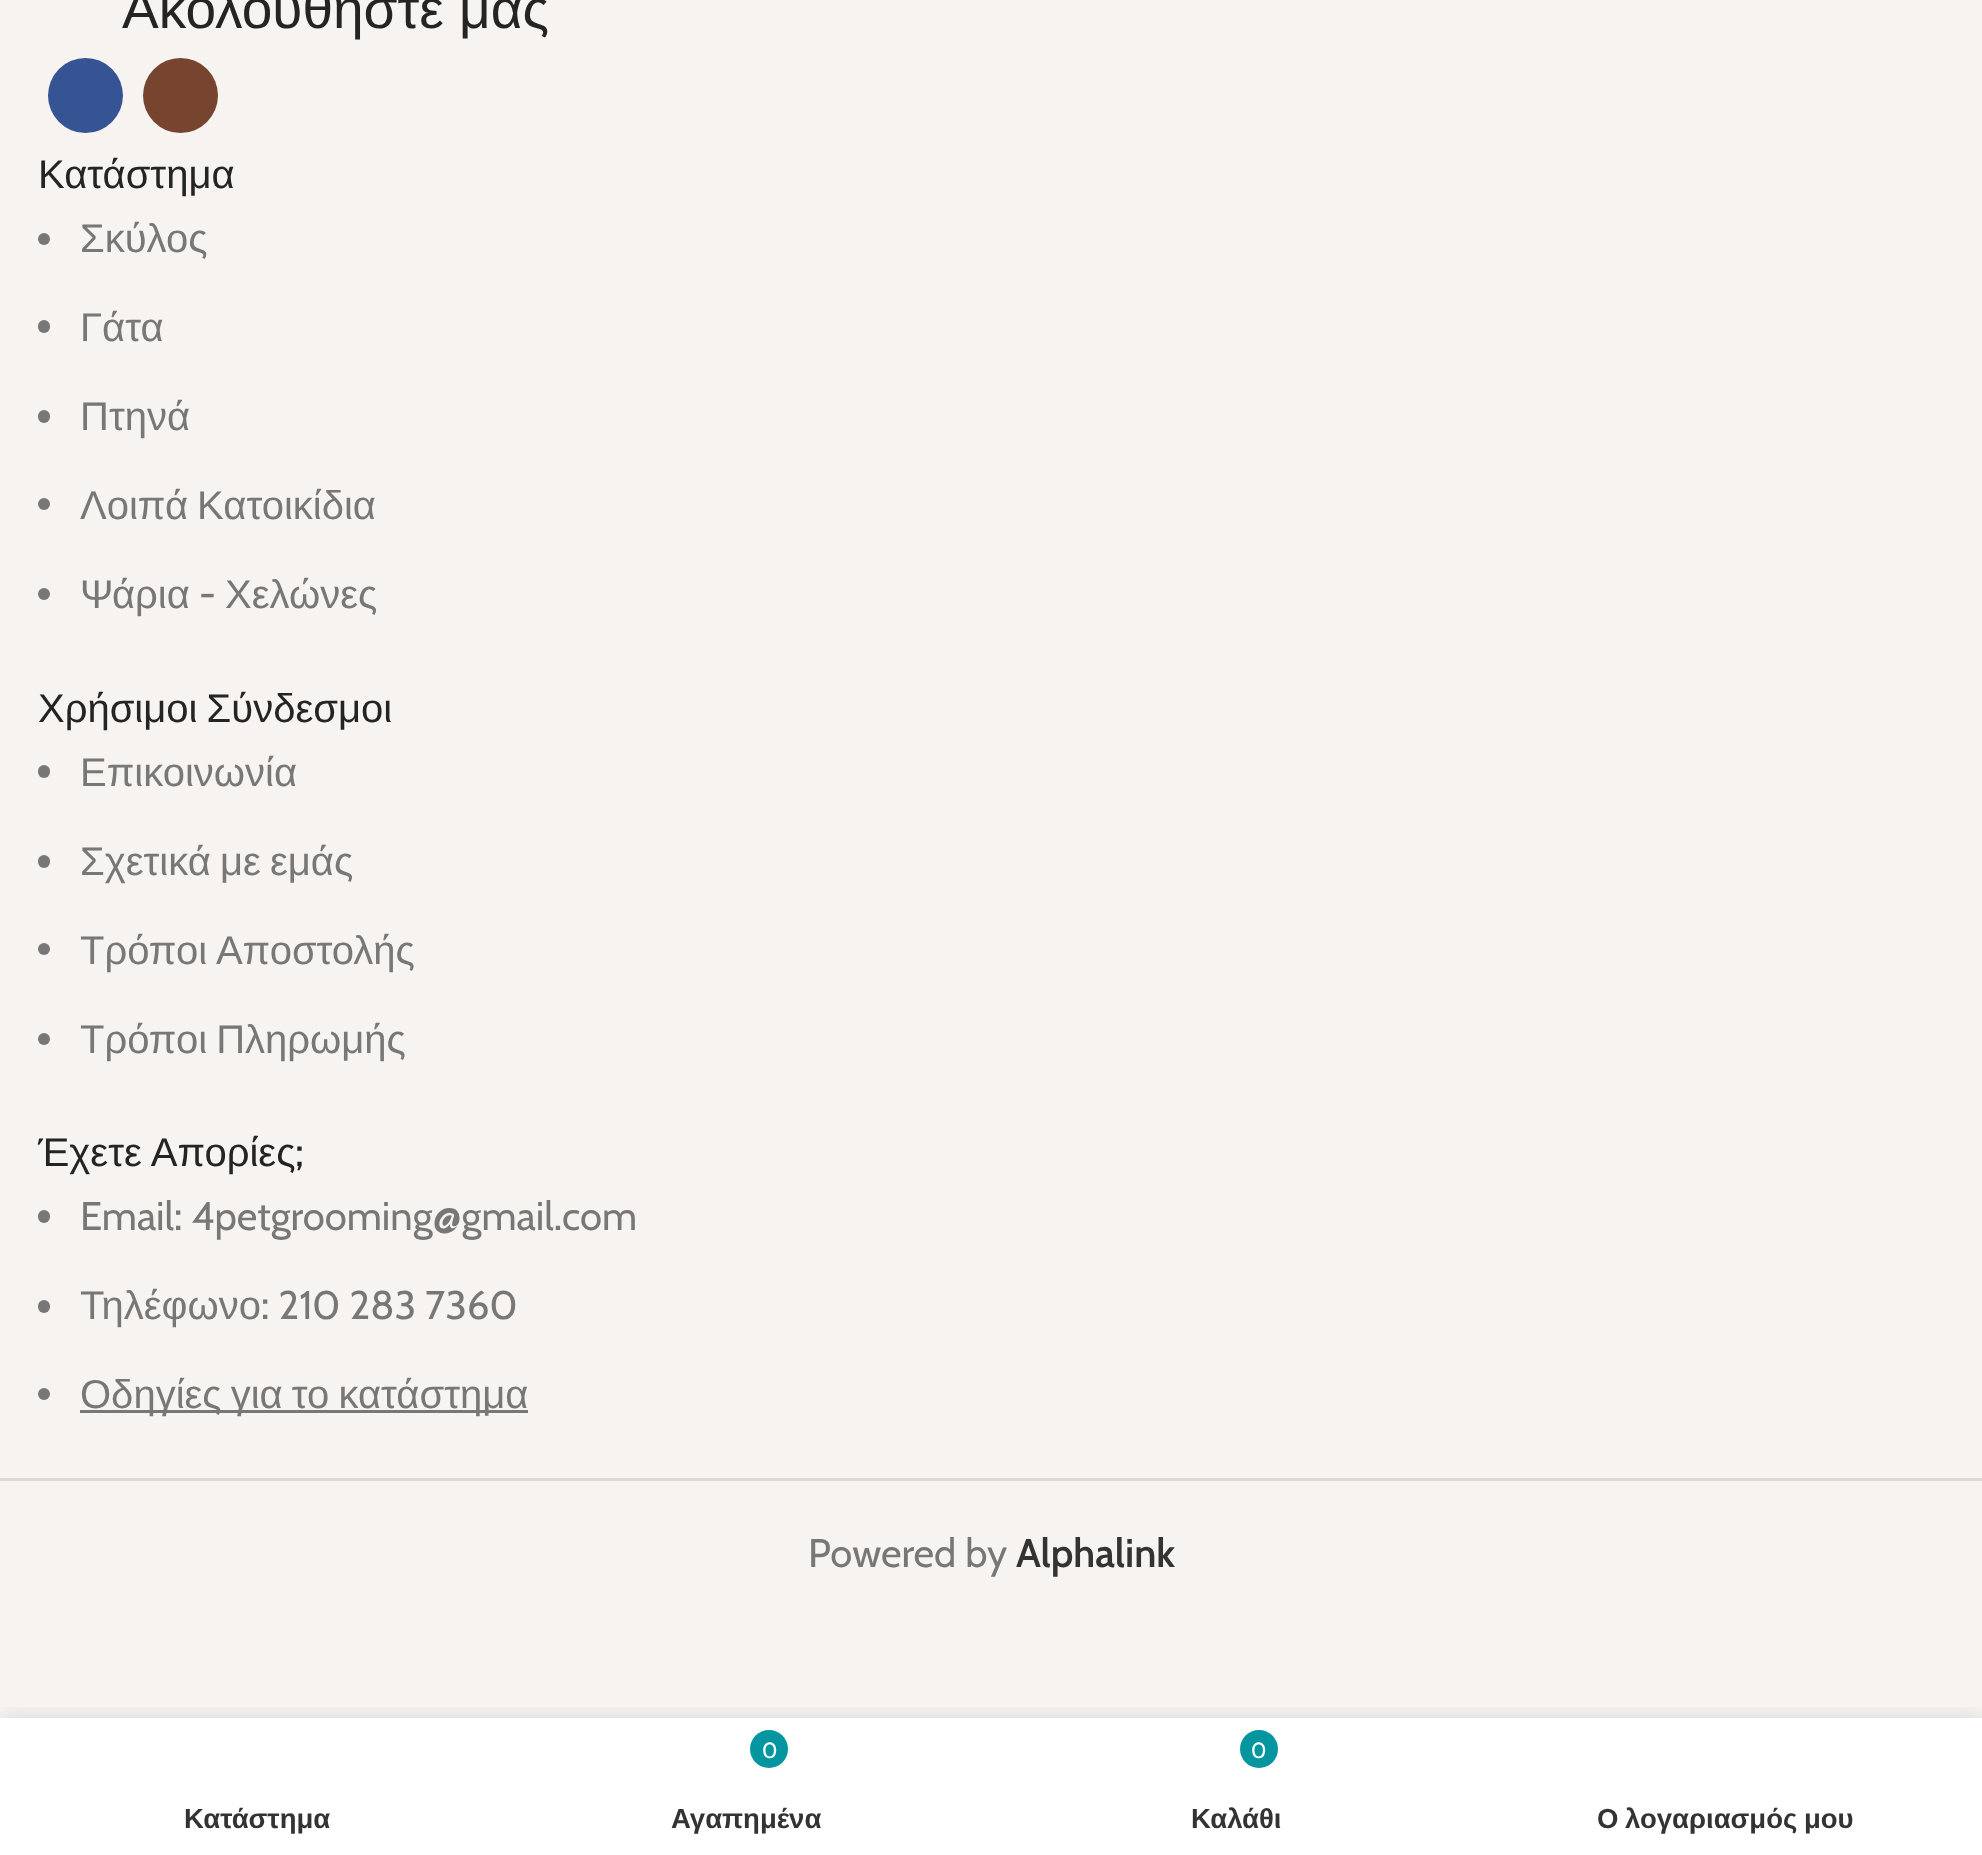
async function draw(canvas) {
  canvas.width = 1982
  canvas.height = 1855
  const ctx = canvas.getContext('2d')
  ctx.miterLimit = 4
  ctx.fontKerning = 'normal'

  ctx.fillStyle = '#fff'
  ctx.fillRect(0, 0, 1982, 1855)
  ctx.fillStyle = '#f7f3f0'
  ctx.fillRect(0, 0, 1982, 1718)
  ctx.font = '55px Liberation Sans'
  ctx.fillStyle = '#242424'
  ctx.fillText('Ακολουθήστε μας', 122, 28)
  ctx.fillStyle = '#365493'
  ctx.beginPath()
  ctx.arc(85.5, 95.5, 37.5, 0, 2 * Math.PI)
  ctx.fill()
  ctx.fillStyle = '#774430'
  ctx.beginPath()
  ctx.arc(180.5, 95.5, 37.5, 0, 2 * Math.PI)
  ctx.fill()
  ctx.font = '40px Liberation Sans'
  ctx.fillStyle = '#242424'
  ctx.fillText('Κατάστημα', 38, 188)
  ctx.fillStyle = '#777'
  ctx.beginPath()
  ctx.arc(44, 239, 6, 0, 2 * Math.PI)
  ctx.fill()
  ctx.fillText('Σκύλος', 80, 252)
  ctx.beginPath()
  ctx.roundRect(38, 320, 12, 13, 6)
  ctx.fill()
  ctx.fillText('Γάτα', 80, 341)
  ctx.beginPath()
  ctx.roundRect(38, 410, 12, 13, 6)
  ctx.fill()
  ctx.fillText('Πτηνά', 80, 430)
  ctx.beginPath()
  ctx.arc(44, 504, 6, 0, 2 * Math.PI)
  ctx.fill()
  ctx.wordSpacing = '-2px'
  ctx.fillText('Λοιπά Κατοικίδια', 80, 519)
  ctx.beginPath()
  ctx.arc(44, 594, 6, 0, 2 * Math.PI)
  ctx.fill()
  ctx.wordSpacing = '0px'
  ctx.fillText('Ψάρια', 80, 608)
  ctx.font = '40px Cabin'
  ctx.fillText('-', 199, 608)
  ctx.font = '40px Liberation Sans'
  ctx.fillText('Χελώνες', 225, 608)
  ctx.wordSpacing = '-2px'
  ctx.fillStyle = '#242424'
  ctx.fillText('Χρήσιμοι Σύνδεσμοι', 38, 722)
  ctx.fillStyle = '#777'
  ctx.beginPath()
  ctx.roundRect(38, 765, 12, 13, 6)
  ctx.fill()
  ctx.wordSpacing = '0px'
  ctx.fillText('Επικοινωνία', 80, 786)
  ctx.beginPath()
  ctx.roundRect(38, 855, 12, 13, 6)
  ctx.fill()
  ctx.wordSpacing = '-2px'
  ctx.fillText('Σχετικά με εμάς', 80, 875)
  ctx.beginPath()
  ctx.arc(44, 949, 6, 0, 2 * Math.PI)
  ctx.fill()
  ctx.wordSpacing = '0px'
  ctx.fillText('Τρόποι Αποστολής', 80, 964)
  ctx.beginPath()
  ctx.arc(44, 1039, 6, 0, 2 * Math.PI)
  ctx.fill()
  ctx.wordSpacing = '-2px'
  ctx.fillText('Τρόποι Πληρωμής', 80, 1053)
  ctx.wordSpacing = '0px'
  ctx.fillStyle = '#242424'
  ctx.fillText('Έχετε Απορίες', 38, 1166)
  ctx.font = '40px Cabin'
  ctx.fillText(';', 295, 1166)
  ctx.fillStyle = '#777'
  ctx.beginPath()
  ctx.roundRect(38, 1210, 12, 13, 6)
  ctx.fill()
  ctx.fillText('Email: 4petgrooming@gmail.com', 80, 1230)
  ctx.beginPath()
  ctx.roundRect(38, 1300, 12, 13, 6)
  ctx.fill()
  ctx.font = '40px Liberation Sans'
  ctx.fillText('Τηλέφωνο', 80, 1319)
  ctx.font = '40px Cabin'
  ctx.fillText(': 210 283 7360', 261, 1319)
  ctx.beginPath()
  ctx.arc(44, 1394, 6, 0, 2 * Math.PI)
  ctx.fill()
  ctx.fillRect(80, 1410, 448, 3)
  ctx.wordSpacing = '-2px'
  ctx.font = '40px Liberation Sans'
  ctx.fillText('Οδηγίες για το κατάστημα', 80, 1408)
  ctx.fillStyle = '#ddd9d7'
  ctx.fillRect(0, 1478, 1982, 3)
  ctx.wordSpacing = '0px'
  ctx.font = '40px Cabin'
  ctx.fillStyle = '#777'
  ctx.fillText('Powered by', 808, 1567)
  ctx.font = '600 40px Cabin'
  ctx.fillStyle = '#333'
  ctx.fillText('Alphalink', 1016, 1567)
  ctx.save()
  ctx.beginPath()
  ctx.rect(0, 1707, 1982, 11)
  ctx.clip()
  ctx.fillStyle = '#0000001f'
  ctx.filter = 'blur(11px)'
  ctx.beginPath()
  ctx.rect(0, 1718, 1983, 137)
  ctx.fill()
  ctx.filter = 'none'
  ctx.restore()
  ctx.font = 'bold 27.5px Liberation Sans'
  ctx.fillText('Κατάστημα', 184, 1828)
  ctx.fillStyle = '#0396a0'
  ctx.beginPath()
  ctx.arc(769, 1749, 19, 0, 2 * Math.PI)
  ctx.fill()
  ctx.font = '22px Cabin'
  ctx.fillStyle = '#fff'
  ctx.fillText('0', 762, 1758)
  ctx.font = 'bold 27.5px Liberation Sans'
  ctx.fillStyle = '#333'
  ctx.fillText('Αγαπημένα', 671, 1828)
  ctx.fillStyle = '#0396a0'
  ctx.beginPath()
  ctx.arc(1259, 1749, 19, 0, 2 * Math.PI)
  ctx.fill()
  ctx.font = '22px Cabin'
  ctx.fillStyle = '#fff'
  ctx.fillText('0', 1251, 1758)
  ctx.font = 'bold 27.5px Liberation Sans'
  ctx.fillStyle = '#333'
  ctx.fillText('Καλάθι', 1191, 1828)
  ctx.wordSpacing = '-1px'
  ctx.fillText('Ο λογαριασμός μου', 1597, 1828)
}

draw(document.querySelector('canvas'))
